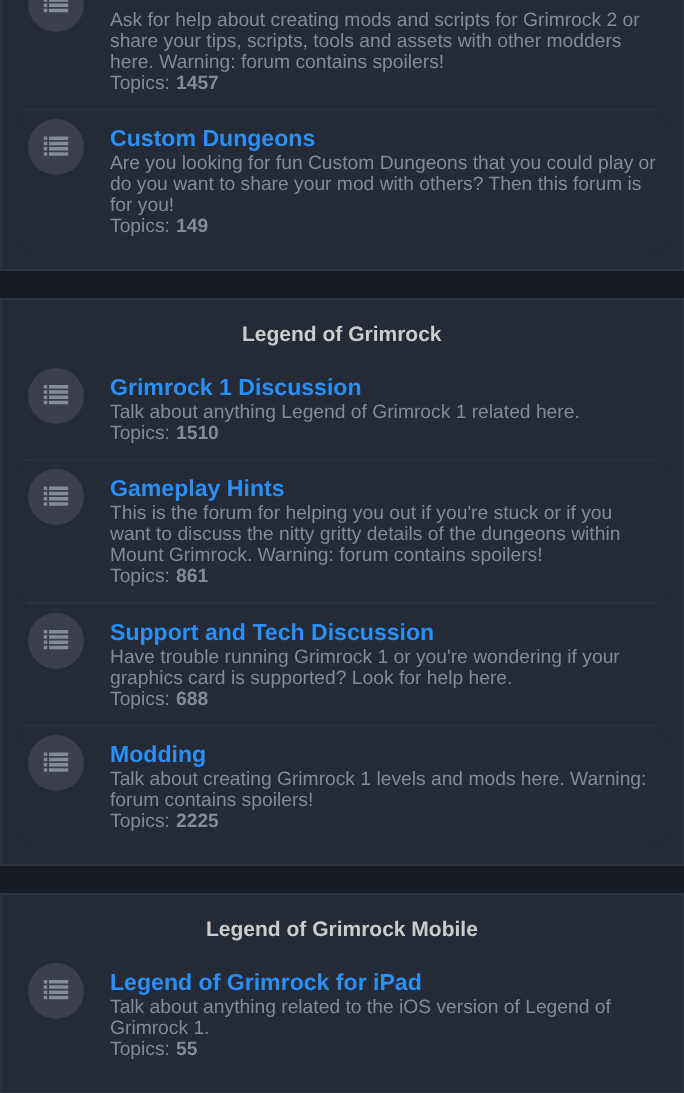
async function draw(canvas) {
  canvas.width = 684
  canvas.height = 1093
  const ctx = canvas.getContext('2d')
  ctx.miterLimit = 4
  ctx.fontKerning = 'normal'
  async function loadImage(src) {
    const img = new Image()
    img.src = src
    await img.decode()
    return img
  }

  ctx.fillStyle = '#171b24'
  ctx.fillRect(0, 0, 684, 1093)
  ctx.fillStyle = '#242a36'
  ctx.beginPath()
  ctx.rect(1, -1, 682, 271)
  ctx.fill()
  ctx.strokeStyle = '#2d333e'
  ctx.lineWidth = 2
  ctx.stroke()
  ctx.fillStyle = '#2d333e'
  ctx.fillRect(26, 109, 632, 2)
  ctx.fillStyle = '#3a3f4a'
  ctx.beginPath()
  ctx.arc(56, 4, 28, 0, 2 * Math.PI)
  ctx.fill()
  ctx.drawImage(await loadImage('image0.png'), 43, 0, 26, 13)
  ctx.font = '19.25px Liberation Sans'
  ctx.fillStyle = '#838b98'
  ctx.fillText('Ask for help about creating mods and scripts for Grimrock 2 or', 110, 26)
  ctx.fillText('share your tips, scripts, tools and assets with other modders', 110, 47)
  ctx.fillText('here. Warning: forum contains spoilers!', 110, 68)
  ctx.fillText('Topics:', 110, 89)
  ctx.font = 'bold 19.25px Liberation Sans'
  ctx.fillText('1457', 176, 89)
  ctx.fillStyle = '#242a36'
  ctx.beginPath()
  ctx.roundRect(19, 110, 646, 142, 14)
  ctx.fill()
  ctx.fillStyle = '#3a3f4a'
  ctx.beginPath()
  ctx.arc(56, 147, 28, 0, 2 * Math.PI)
  ctx.fill()
  ctx.drawImage(await loadImage('image1.png'), 43, 136, 26, 20)
  ctx.font = 'bold 23.1px Liberation Sans'
  ctx.fillStyle = '#2a8ff7'
  ctx.fillText('Custom Dungeons', 110, 146)
  ctx.font = '19.25px Liberation Sans'
  ctx.fillStyle = '#838b98'
  ctx.fillText('Are you looking for fun Custom Dungeons that you could play or', 110, 169)
  ctx.fillText('do you want to share your mod with others? Then this forum is', 110, 190)
  ctx.fillText('for you!', 110, 211)
  ctx.fillText('Topics:', 110, 232)
  ctx.font = 'bold 19.25px Liberation Sans'
  ctx.fillText('149', 176, 232)
  ctx.fillStyle = '#242a36'
  ctx.beginPath()
  ctx.rect(1, 299, 682, 566)
  ctx.fill()
  ctx.stroke()
  ctx.font = 'bold 21px Liberation Sans'
  ctx.fillStyle = '#ccc'
  ctx.fillText('Legend of Grimrock', 242, 341)
  ctx.fillStyle = '#2d333e'
  ctx.fillRect(26, 459, 632, 2)
  ctx.fillStyle = '#3a3f4a'
  ctx.beginPath()
  ctx.arc(56, 396, 28, 0, 2 * Math.PI)
  ctx.fill()
  ctx.drawImage(await loadImage('image2.png'), 43, 385, 26, 20)
  ctx.font = 'bold 23.1px Liberation Sans'
  ctx.fillStyle = '#2a8ff7'
  ctx.fillText('Grimrock 1 Discussion', 110, 395)
  ctx.font = '19.25px Liberation Sans'
  ctx.fillStyle = '#838b98'
  ctx.fillText('Talk about anything Legend of Grimrock 1 related here.', 110, 418)
  ctx.fillText('Topics:', 110, 439)
  ctx.font = 'bold 19.25px Liberation Sans'
  ctx.fillText('1510', 176, 439)
  ctx.fillStyle = '#242a36'
  ctx.beginPath()
  ctx.roundRect(19, 460, 646, 144, 14)
  ctx.fill()
  ctx.fillStyle = '#2d333e'
  ctx.fillRect(26, 602, 632, 2)
  ctx.fillStyle = '#3a3f4a'
  ctx.beginPath()
  ctx.arc(56, 497, 28, 0, 2 * Math.PI)
  ctx.fill()
  ctx.drawImage(await loadImage('image1.png'), 43, 486, 26, 20)
  ctx.font = 'bold 23.1px Liberation Sans'
  ctx.fillStyle = '#2a8ff7'
  ctx.fillText('Gameplay Hints', 110, 496)
  ctx.font = '19.25px Liberation Sans'
  ctx.fillStyle = '#838b98'
  ctx.fillText('This is the forum for helping you out if you\'re stuck or if you', 110, 519)
  ctx.fillText('want to discuss the nitty gritty details of the dungeons within', 110, 540)
  ctx.fillText('Mount Grimrock. Warning: forum contains spoilers!', 110, 561)
  ctx.fillText('Topics:', 110, 582)
  ctx.font = 'bold 19.25px Liberation Sans'
  ctx.fillText('861', 176, 582)
  ctx.fillStyle = '#2d333e'
  ctx.fillRect(26, 725, 632, 2)
  ctx.fillStyle = '#3a3f4a'
  ctx.beginPath()
  ctx.arc(56, 641, 28, 0, 2 * Math.PI)
  ctx.fill()
  ctx.drawImage(await loadImage('image2.png'), 43, 630, 26, 20)
  ctx.font = 'bold 23.1px Liberation Sans'
  ctx.fillStyle = '#2a8ff7'
  ctx.fillText('Support and Tech Discussion', 110, 640)
  ctx.font = '19.25px Liberation Sans'
  ctx.fillStyle = '#838b98'
  ctx.fillText('Have trouble running Grimrock 1 or you\'re wondering if your', 110, 663)
  ctx.fillText('graphics card is supported? Look for help here.', 110, 684)
  ctx.fillText('Topics:', 110, 705)
  ctx.font = 'bold 19.25px Liberation Sans'
  ctx.fillText('688', 176, 705)
  ctx.fillStyle = '#242a36'
  ctx.beginPath()
  ctx.roundRect(19, 726, 646, 121, 14)
  ctx.fill()
  ctx.fillStyle = '#3a3f4a'
  ctx.beginPath()
  ctx.arc(56, 763, 28, 0, 2 * Math.PI)
  ctx.fill()
  ctx.drawImage(await loadImage('image1.png'), 43, 752, 26, 20)
  ctx.font = 'bold 23.1px Liberation Sans'
  ctx.fillStyle = '#2a8ff7'
  ctx.fillText('Modding', 110, 762)
  ctx.font = '19.25px Liberation Sans'
  ctx.fillStyle = '#838b98'
  ctx.fillText('Talk about creating Grimrock 1 levels and mods here. Warning:', 110, 785)
  ctx.fillText('forum contains spoilers!', 110, 806)
  ctx.fillText('Topics:', 110, 827)
  ctx.font = 'bold 19.25px Liberation Sans'
  ctx.fillText('2225', 176, 827)
  ctx.fillStyle = '#242a36'
  ctx.beginPath()
  ctx.rect(1, 894, 682, 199)
  ctx.fill()
  ctx.stroke()
  ctx.font = 'bold 21px Liberation Sans'
  ctx.fillStyle = '#ccc'
  ctx.fillText('Legend of Grimrock Mobile', 206, 936)
  ctx.fillStyle = '#3a3f4a'
  ctx.beginPath()
  ctx.arc(56, 991, 28, 0, 2 * Math.PI)
  ctx.fill()
  ctx.drawImage(await loadImage('image2.png'), 43, 980, 26, 20)
  ctx.font = 'bold 23.1px Liberation Sans'
  ctx.fillStyle = '#2a8ff7'
  ctx.fillText('Legend of Grimrock for iPad', 110, 990)
  ctx.font = '19.25px Liberation Sans'
  ctx.fillStyle = '#838b98'
  ctx.fillText('Talk about anything related to the iOS version of Legend of', 110, 1013)
  ctx.fillText('Grimrock 1.', 110, 1034)
  ctx.fillText('Topics:', 110, 1055)
  ctx.font = 'bold 19.25px Liberation Sans'
  ctx.fillText('55', 176, 1055)
}

draw(document.querySelector('canvas'))
